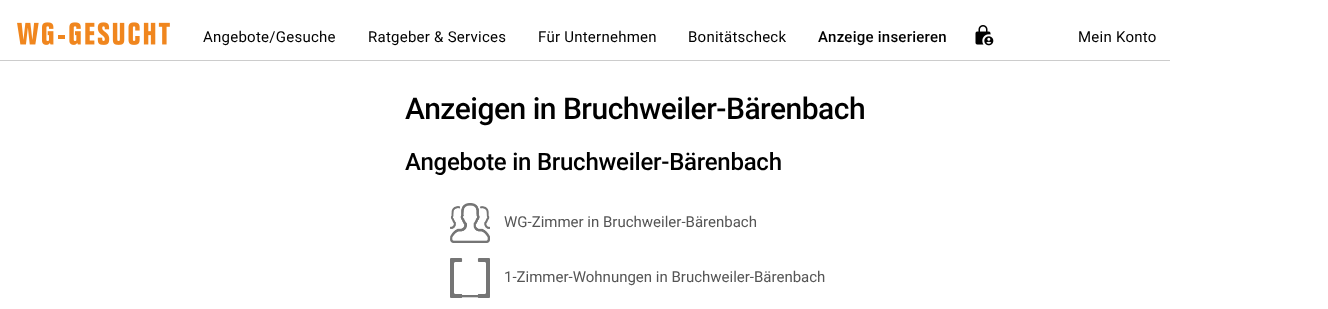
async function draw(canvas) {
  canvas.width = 1328
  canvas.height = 309
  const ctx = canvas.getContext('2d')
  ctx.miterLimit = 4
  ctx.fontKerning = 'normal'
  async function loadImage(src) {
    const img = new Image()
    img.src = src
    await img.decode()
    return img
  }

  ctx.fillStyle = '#fff'
  ctx.fillRect(0, 0, 1328, 309)
  ctx.fillStyle = '#ccc'
  ctx.fillRect(0, 60, 1170, 1)
  ctx.drawImage(await loadImage('image0.png'), 17, 22, 153, 23)
  ctx.letterSpacing = '0.25px'
  ctx.font = '15px Roboto'
  ctx.fillStyle = '#000'
  ctx.fillText('Angebote/Gesuche', 203, 42)
  ctx.fillText('Ratgeber & Services', 368, 42)
  ctx.fillText('Für Unternehmen', 538, 42)
  ctx.fillText('Bonitätscheck', 688, 42)
  ctx.font = '500 15px Roboto'
  ctx.fillText('Anzeige inserieren', 818, 42)
  ctx.drawImage(await loadImage('image1.png'), 975, 25, 19, 21)
  ctx.font = '15px Roboto'
  ctx.fillText('Mein Konto', 1078, 42)
  ctx.letterSpacing = '-0.5px'
  ctx.font = '500 30px Roboto'
  ctx.fillText('Anzeigen in Bruchweiler-Bärenbach', 405, 119)
  ctx.letterSpacing = '-0.25px'
  ctx.font = '500 24px Roboto'
  ctx.fillText('Angebote in Bruchweiler-Bärenbach', 405, 170)
  ctx.drawImage(await loadImage('image2.png'), 450, 203, 40, 40)
  ctx.letterSpacing = '0px'
  ctx.font = '15px Roboto'
  ctx.fillStyle = '#555'
  ctx.fillText('WG-Zimmer in Bruchweiler-Bärenbach', 504, 227)
  ctx.drawImage(await loadImage('image3.png'), 450, 258, 40, 40)
  ctx.fillText('1-Zimmer-Wohnungen in Bruchweiler-Bärenbach', 504, 282)
}

draw(document.querySelector('canvas'))
